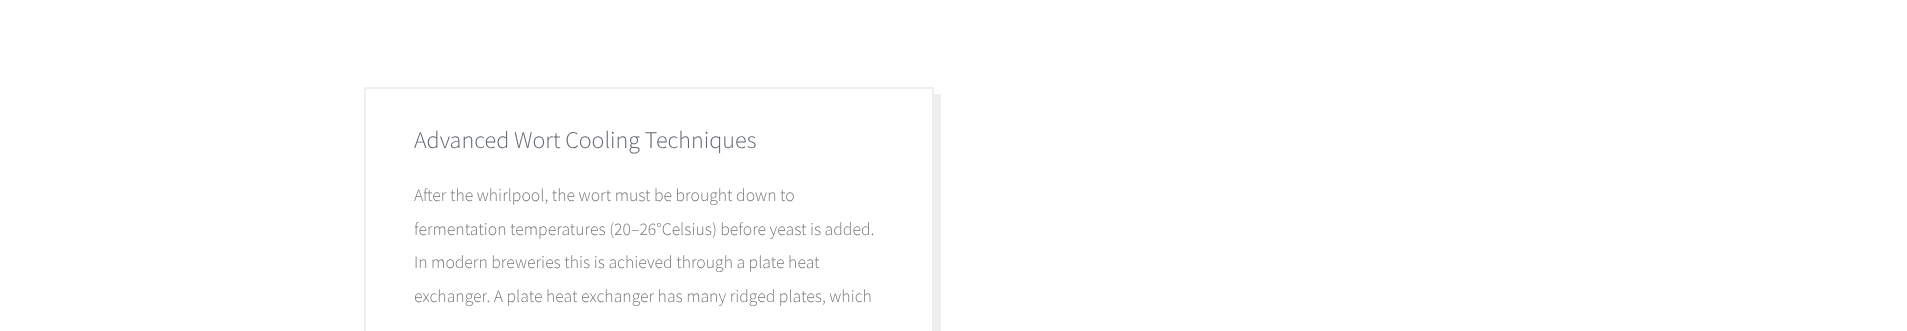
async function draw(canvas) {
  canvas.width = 1907
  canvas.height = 331
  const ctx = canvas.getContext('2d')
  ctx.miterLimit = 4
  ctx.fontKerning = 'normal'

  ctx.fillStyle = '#fff'
  ctx.fillRect(0, 0, 1907, 331)
  ctx.fillStyle = '#efefef'
  ctx.beginPath()
  ctx.moveTo(371, 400)
  ctx.lineTo(371, 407)
  ctx.lineTo(941, 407)
  ctx.lineTo(941, 94)
  ctx.lineTo(934, 94)
  ctx.lineTo(934, 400)
  ctx.closePath()
  ctx.fill()
  ctx.strokeStyle = '#efefef'
  ctx.lineWidth = 2
  ctx.strokeRect(365, 88, 568, 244)
  ctx.font = '300 24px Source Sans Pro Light'
  ctx.fillStyle = '#616671'
  ctx.fillText('Advanced Wort Cooling Techniques', 414, 148)
  ctx.font = '300 17.6px Source Sans Pro Light'
  ctx.fillStyle = '#777'
  ctx.fillText('After the whirlpool, the wort must be brought down to', 414, 201)
  ctx.fillText('fermentation temperatures (20–26°Celsius) before yeast is added.', 414, 235)
  ctx.fillText('In modern breweries this is achieved through a plate heat', 414, 268)
  ctx.fillText('exchanger. A plate heat exchanger has many ridged plates, which', 414, 302)
}

draw(document.querySelector('canvas'))
